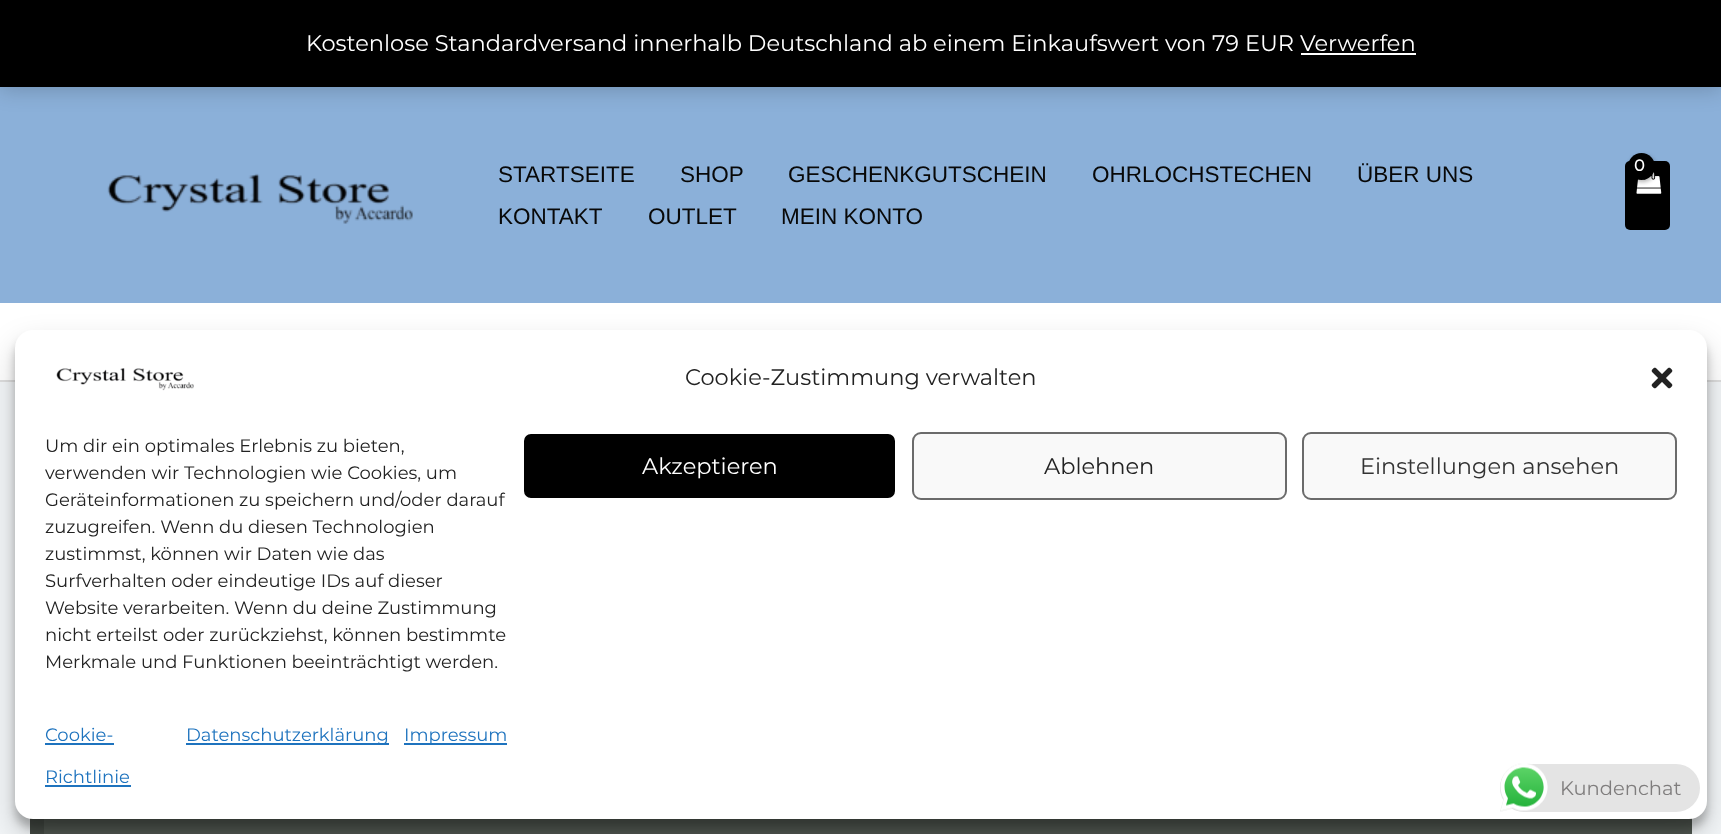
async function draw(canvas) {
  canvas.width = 1721
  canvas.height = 834
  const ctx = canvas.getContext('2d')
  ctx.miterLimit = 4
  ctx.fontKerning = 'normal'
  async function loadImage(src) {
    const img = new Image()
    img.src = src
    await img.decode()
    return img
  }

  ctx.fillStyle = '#f2f5f7'
  ctx.fillRect(0, 0, 1721, 834)
  ctx.fillStyle = '#8bb0d9'
  ctx.fillRect(0, 87, 1721, 216)
  ctx.fillStyle = '#00000033'
  ctx.filter = 'blur(11px)'
  ctx.beginPath()
  ctx.rect(0, 2, 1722, 87)
  ctx.fill()
  ctx.filter = 'none'
  ctx.fillStyle = '#000'
  ctx.fillRect(0, 0, 1721, 87)
  ctx.font = '100 22.5px Montserrat'
  ctx.fillStyle = '#fff'
  ctx.fillText('Kostenlose Standardversand innerhalb Deutschland ab einem Einkaufswert von 79 EUR Verwerfen', 306, 51)
  ctx.fillRect(1301, 53, 115, 2)
  ctx.drawImage(await loadImage('image0.png'), 107, 173, 306, 51)
  ctx.font = '22.5px Liberation Sans'
  ctx.fillStyle = '#080808'
  ctx.fillText('STARTSEITE', 498, 182)
  ctx.fillText('SHOP', 680, 182)
  ctx.fillText('GESCHENKGUTSCHEIN', 788, 182)
  ctx.fillText('OHRLOCHSTECHEN', 1092, 182)
  ctx.fillText('ÜBER UNS', 1357, 182)
  ctx.fillText('KONTAKT', 498, 224)
  ctx.fillText('OUTLET', 648, 224)
  ctx.fillText('MEIN KONTO', 781, 224)
  ctx.fillStyle = '#000'
  ctx.beginPath()
  ctx.roundRect(1625, 161, 45, 69, 5)
  ctx.fill()
  ctx.drawImage(await loadImage('image1.png'), 1636, 171, 26, 23)
  ctx.fillStyle = '#0000004d'
  ctx.filter = 'blur(2px)'
  ctx.beginPath()
  ctx.roundRect(1629, 155, 27, 27, 13.5)
  ctx.fill()
  ctx.filter = 'none'
  ctx.fillStyle = '#000'
  ctx.beginPath()
  ctx.arc(1641.5, 166.5, 13.5, 0, 2 * Math.PI)
  ctx.fill()
  ctx.letterSpacing = '-1px'
  ctx.font = 'bold 16px Montserrat'
  ctx.fillStyle = '#fff'
  ctx.fillText('0', 1634, 171)
  ctx.fillRect(0, 303, 1721, 77)
  ctx.fillStyle = '#ddd'
  ctx.fillRect(0, 380, 1721, 2)
  ctx.fillStyle = '#505750'
  ctx.fillRect(44, 818, 1648, 16)
  ctx.fillStyle = '#444a44'
  ctx.fillRect(30, 818, 14, 16)
  ctx.fillStyle = '#0000003b'
  ctx.filter = 'blur(4.5px)'
  ctx.beginPath()
  ctx.roundRect(15, 339, 1692, 489, 18)
  ctx.fill()
  ctx.filter = 'none'
  ctx.fillStyle = '#00000030'
  ctx.filter = 'blur(15px)'
  ctx.beginPath()
  ctx.roundRect(15, 345, 1692, 489, 18)
  ctx.fill()
  ctx.filter = 'none'
  ctx.fillStyle = '#fff'
  ctx.beginPath()
  ctx.roundRect(15, 330, 1692, 489, 18)
  ctx.fill()
  ctx.drawImage(await loadImage('image2.png'), 56, 368, 138, 23)
  ctx.letterSpacing = '0px'
  ctx.font = '100 22.5px Montserrat'
  ctx.fillStyle = '#222'
  ctx.fillText('Cookie-Zustimmung verwalten', 685, 385)
  ctx.drawImage(await loadImage('image3.png'), 1651, 367, 22, 22)
  ctx.font = '100 18px Montserrat'
  ctx.fillText('Um dir ein optimales Erlebnis zu bieten,', 45, 452)
  ctx.fillText('verwenden wir Technologien wie Cookies, um', 45, 479)
  ctx.fillText('Geräteinformationen zu speichern und/oder darauf', 45, 506)
  ctx.fillText('zuzugreifen. Wenn du diesen Technologien', 45, 533)
  ctx.fillText('zustimmst, können wir Daten wie das', 45, 560)
  ctx.fillText('Surfverhalten oder eindeutige IDs auf dieser', 45, 587)
  ctx.fillText('Website verarbeiten. Wenn du deine Zustimmung', 45, 614)
  ctx.fillText('nicht erteilst oder zurückziehst, können bestimmte', 45, 641)
  ctx.fillText('Merkmale und Funktionen beeinträchtigt werden.', 45, 668)
  ctx.fillStyle = '#000'
  ctx.beginPath()
  ctx.roundRect(523, 433, 373, 66, 8)
  ctx.fill()
  ctx.strokeStyle = '#fff'
  ctx.lineWidth = 2
  ctx.stroke()
  ctx.font = '100 22.5px Montserrat'
  ctx.fillStyle = '#fff'
  ctx.fillText('Akzeptieren', 642, 474)
  ctx.fillStyle = '#f9f9f9'
  ctx.beginPath()
  ctx.roundRect(913, 433, 373, 66, 8)
  ctx.fill()
  ctx.strokeStyle = '#6b6b6b'
  ctx.stroke()
  ctx.fillStyle = '#222'
  ctx.fillText('Ablehnen', 1044, 474)
  ctx.fillStyle = '#f9f9f9'
  ctx.beginPath()
  ctx.roundRect(1303, 433, 373, 66, 8)
  ctx.fill()
  ctx.stroke()
  ctx.fillStyle = '#333'
  ctx.fillText('Einstellungen ansehen', 1360, 474)
  ctx.font = '100 18px Montserrat'
  ctx.fillStyle = '#1e73be'
  ctx.fillText('Cookie-', 45, 741)
  ctx.fillRect(45, 743, 69, 2)
  ctx.fillText('Richtlinie', 45, 783)
  ctx.fillRect(45, 785, 86, 2)
  ctx.fillRect(186, 743, 203, 2)
  ctx.fillText('Datenschutzerklärung', 186, 741)
  ctx.fillRect(404, 743, 103, 2)
  ctx.fillText('Impressum', 404, 741)
  ctx.fillStyle = '#e4e4e4'
  ctx.beginPath()
  ctx.roundRect(1500, 764, 200, 48, 24)
  ctx.fill()
  ctx.drawImage(await loadImage('image4.png'), 1500, 763, 48, 49)
  ctx.font = '100 19.5px Montserrat'
  ctx.fillStyle = '#7f7d7d'
  ctx.fillText('Kundenchat', 1560, 795)
}

draw(document.querySelector('canvas'))
